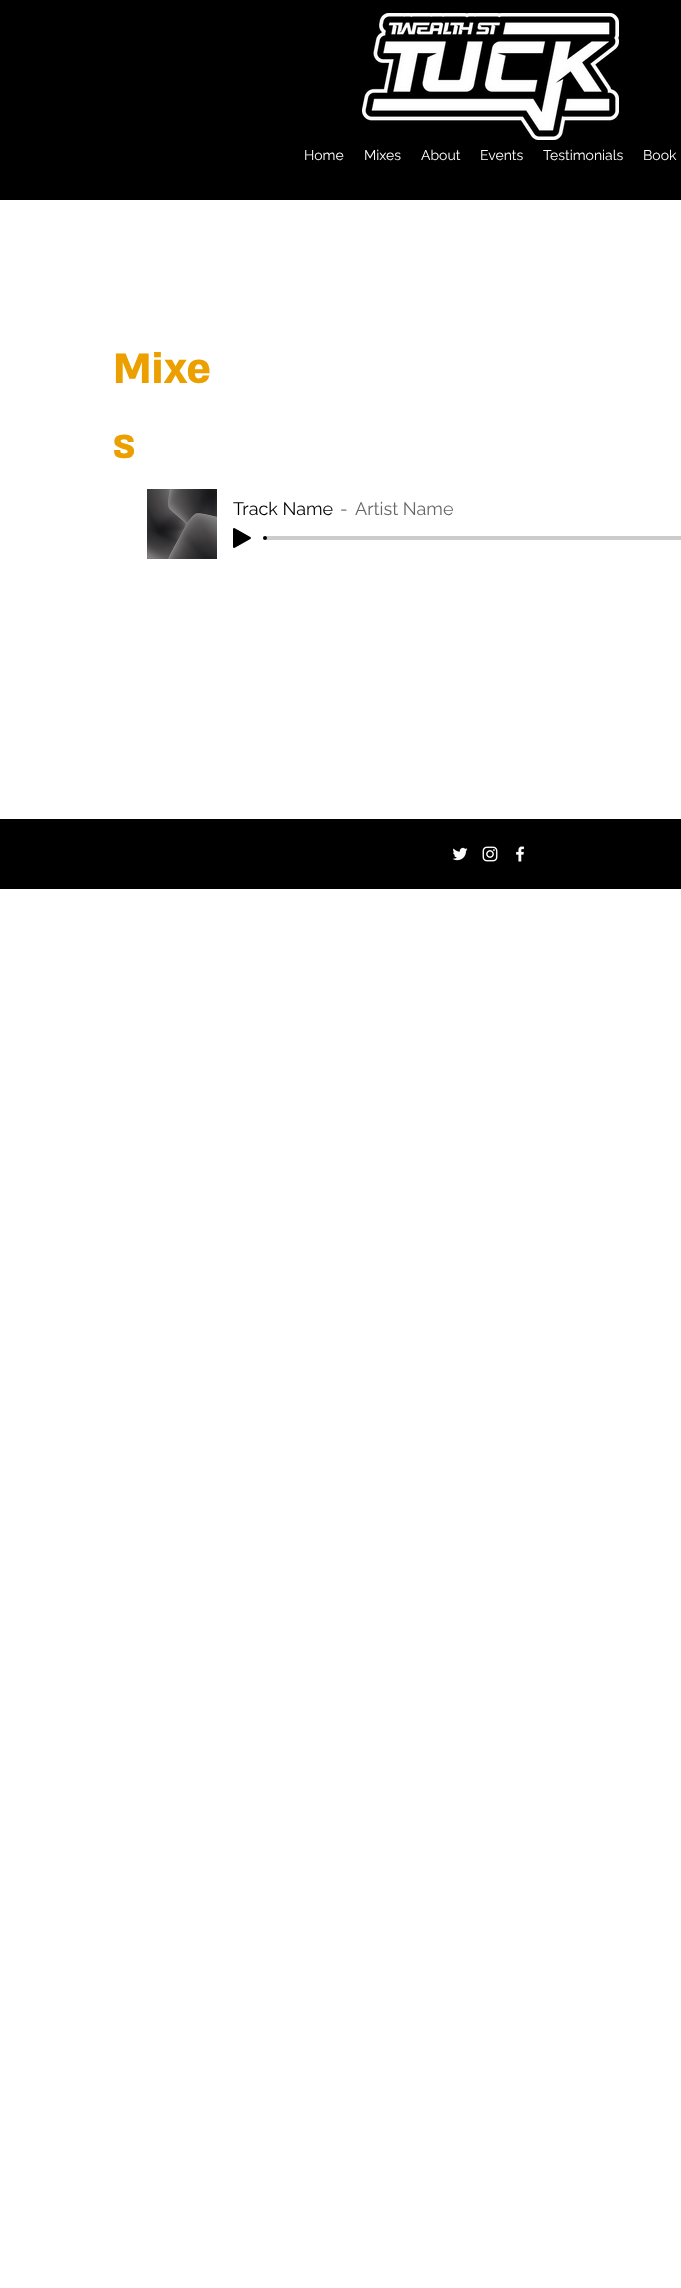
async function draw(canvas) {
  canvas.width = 681
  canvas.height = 2288
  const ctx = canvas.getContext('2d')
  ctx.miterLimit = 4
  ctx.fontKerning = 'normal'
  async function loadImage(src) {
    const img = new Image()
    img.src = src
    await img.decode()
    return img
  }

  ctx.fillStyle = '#fff'
  ctx.fillRect(0, 0, 681, 2288)
  ctx.fillStyle = '#000'
  ctx.fillRect(0, 0, 681, 200)
  ctx.drawImage(await loadImage('image0.png'), 362, 13, 257, 127)
  ctx.font = '14px Raleway'
  ctx.fillStyle = '#fff'
  ctx.fillText('Home', 304, 160)
  ctx.fillText('Mixes', 364, 160)
  ctx.fillText('About', 421, 160)
  ctx.fillText('Events', 480, 160)
  ctx.fillText('Testimonials', 543, 160)
  ctx.fillText('Book', 643, 160)
  ctx.font = 'bold 49px "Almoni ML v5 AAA"'
  ctx.fillStyle = '#eba000'
  ctx.fillText('Mixe', 113, 383)
  ctx.fillText('s', 113, 458)
  ctx.drawImage(await loadImage('image1.png'), 147, 489, 70, 70)
  ctx.font = '18px Raleway'
  ctx.fillStyle = '#000'
  ctx.fillText('Track Name', 233, 515)
  ctx.fillStyle = '#666'
  ctx.fillText('-', 340, 515)
  ctx.fillText('Artist Name', 355, 515)
  ctx.drawImage(await loadImage('image2.png'), 233, 528, 18, 20)
  ctx.fillStyle = '#ccc'
  ctx.beginPath()
  ctx.roundRect(265, 536, 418, 4, 2)
  ctx.fill()
  ctx.fillStyle = '#000'
  ctx.beginPath()
  ctx.arc(265, 538, 2, 0, 2 * Math.PI)
  ctx.fill()
  ctx.fillRect(0, 819, 681, 70)
  ctx.drawImage(await loadImage('image3.png'), 452, 847, 16, 14)
  ctx.drawImage(await loadImage('image4.png'), 482, 846, 16, 16)
  ctx.drawImage(await loadImage('image5.png'), 516, 846, 9, 16)
}

draw(document.querySelector('canvas'))
